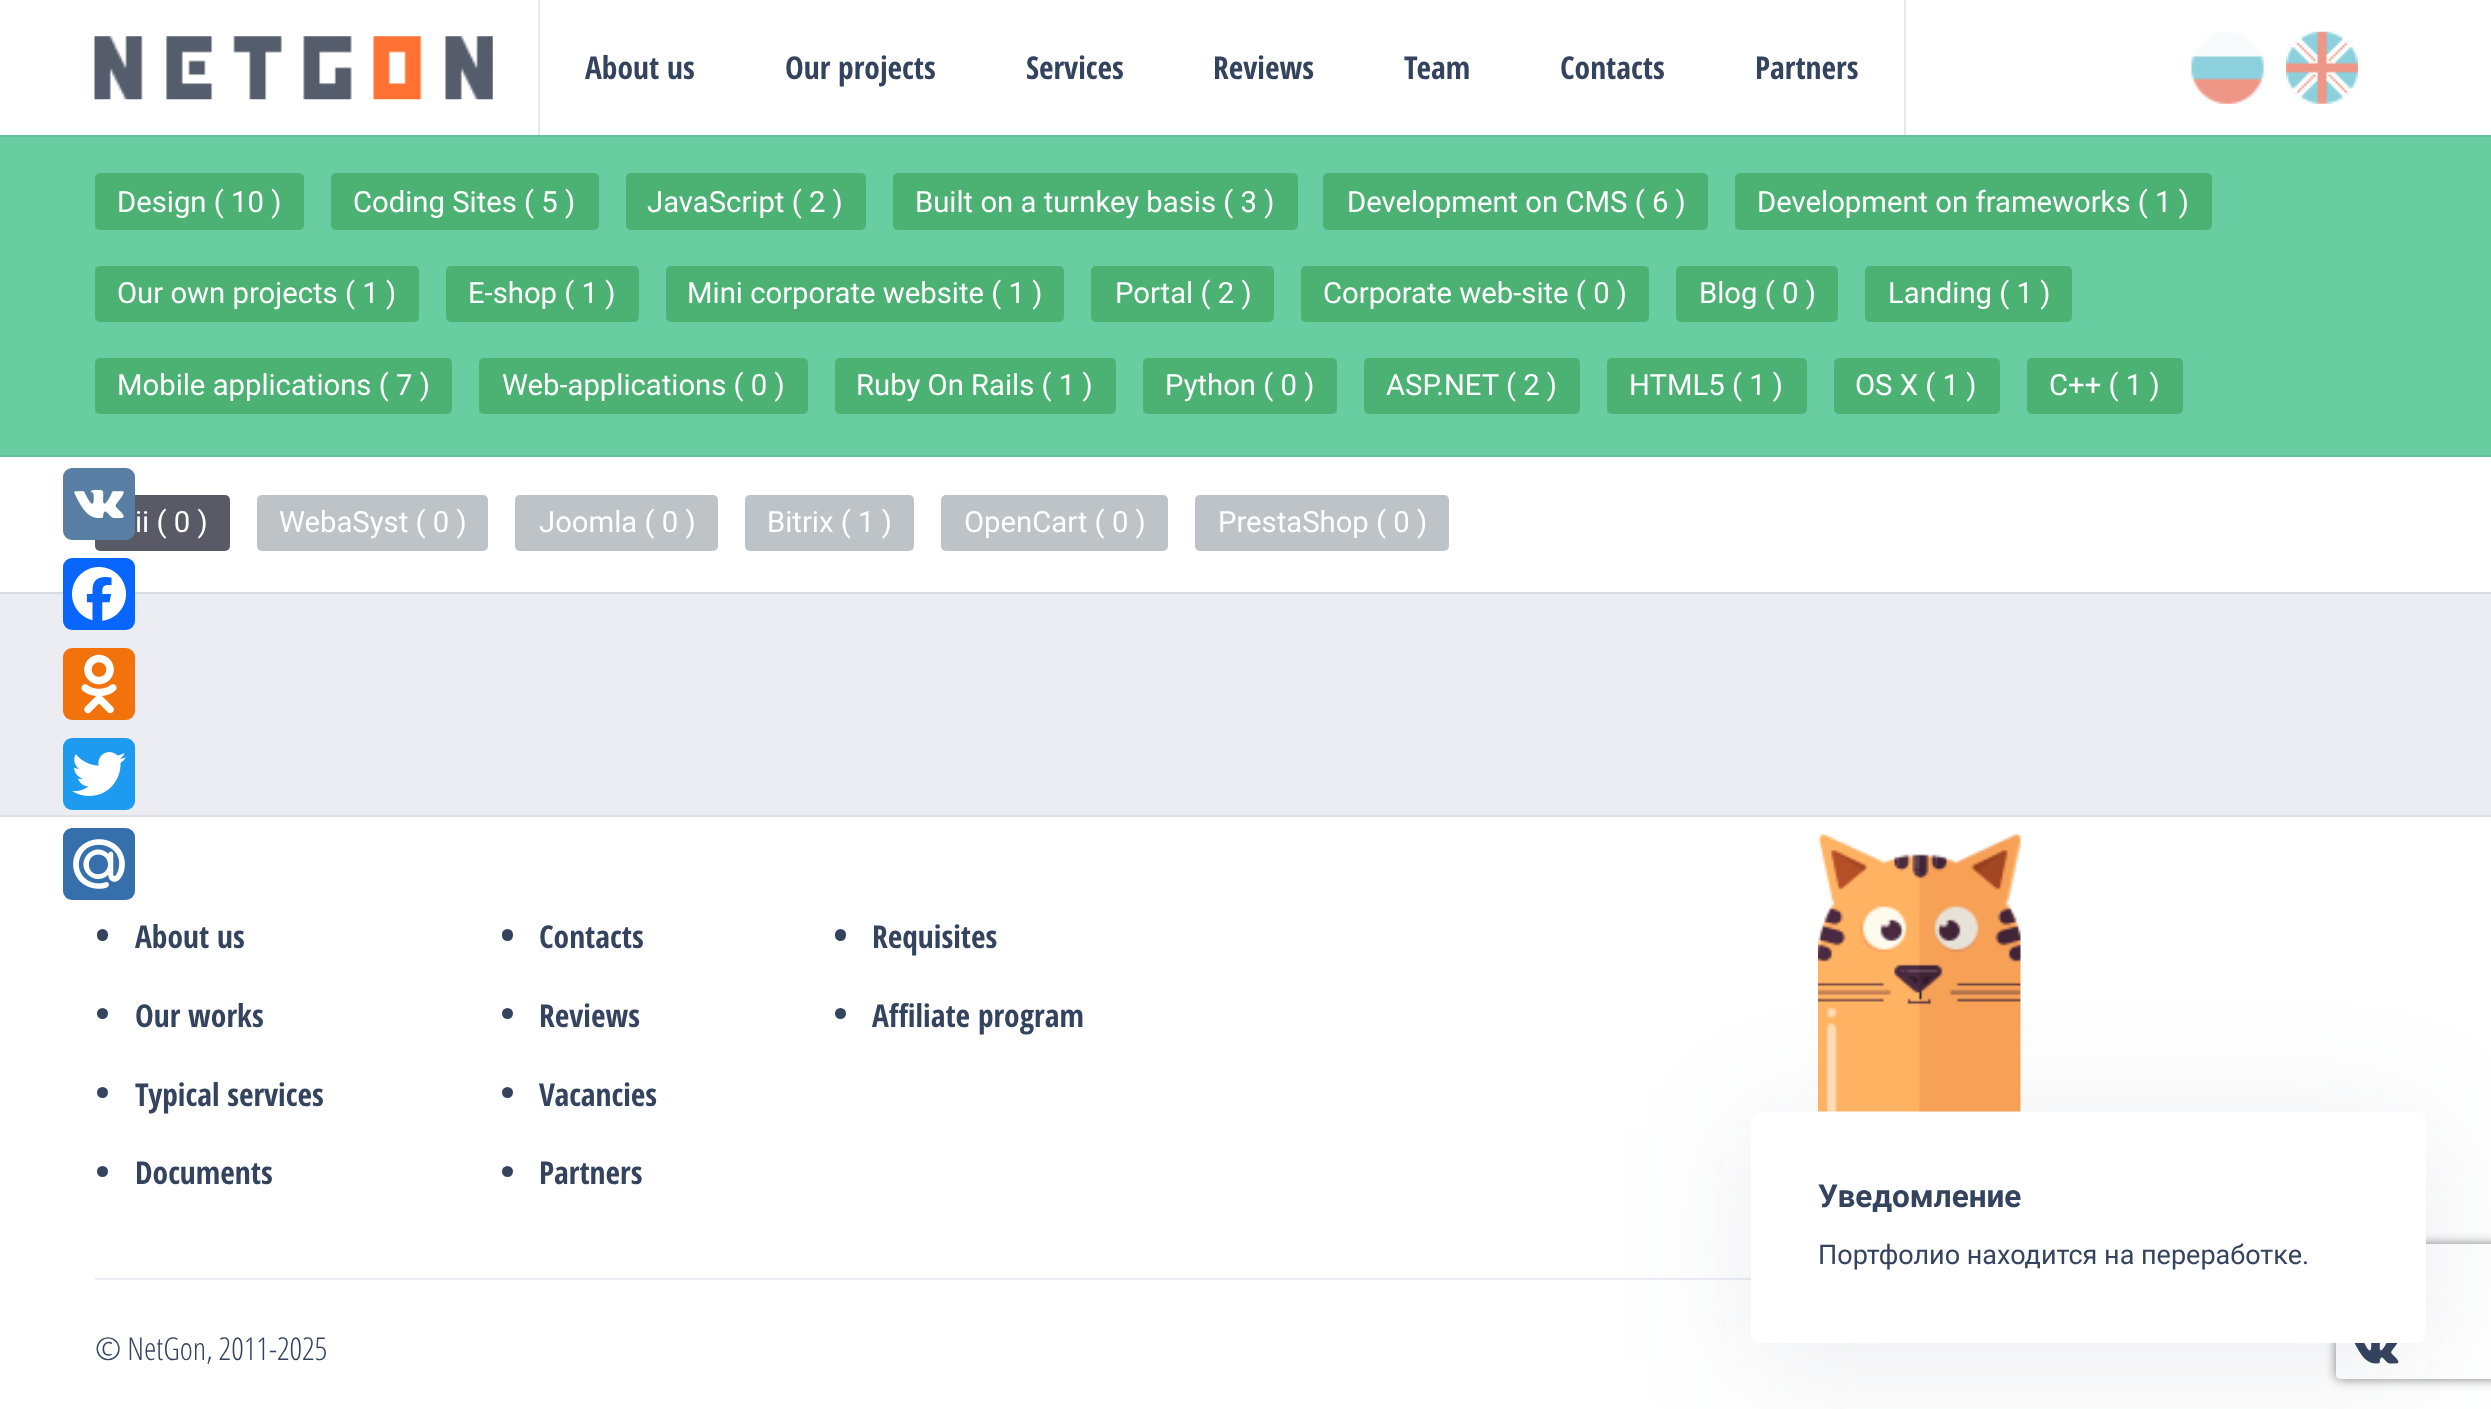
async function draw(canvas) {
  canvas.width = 2491
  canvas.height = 1409
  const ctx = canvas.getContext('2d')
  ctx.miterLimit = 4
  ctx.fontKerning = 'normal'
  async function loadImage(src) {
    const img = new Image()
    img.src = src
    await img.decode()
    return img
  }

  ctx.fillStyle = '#ebedf3'
  ctx.fillRect(0, 0, 2491, 1409)
  ctx.strokeStyle = '#63bf9a'
  ctx.lineWidth = 2
  ctx.strokeRect(-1, -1, 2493, 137)
  ctx.fillStyle = '#fff'
  ctx.fillRect(0, 0, 2491, 135)
  ctx.drawImage(await loadImage('image0.png'), 94, 36, 399, 64)
  ctx.fillStyle = '#e5e9ec'
  ctx.fillRect(1904, 0, 2, 135)
  ctx.fillRect(538, 0, 2, 135)
  ctx.font = 'bold 31.5px Open Sans Condensed'
  ctx.fillStyle = '#34435e'
  ctx.fillText('About us', 585, 79)
  ctx.fillText('Our projects', 785, 79)
  ctx.fillText('Services', 1026, 79)
  ctx.fillText('Reviews', 1213, 79)
  ctx.fillText('Team', 1404, 79)
  ctx.fillText('Contacts', 1560, 79)
  ctx.fillText('Partners', 1755, 79)
  ctx.drawImage(await loadImage('image1.png'), 2191, 32, 73, 72)
  ctx.drawImage(await loadImage('image2.png'), 2286, 31, 72, 73)
  ctx.fillStyle = '#68cda0'
  ctx.fillRect(0, 137, 2491, 320)
  ctx.fillStyle = '#4cb274'
  ctx.beginPath()
  ctx.roundRect(95, 173, 209, 57, 5)
  ctx.fill()
  ctx.font = '29.25px Roboto'
  ctx.fillStyle = '#fff'
  ctx.fillText('Design ( 10 )', 117, 212)
  ctx.fillStyle = '#4cb274'
  ctx.beginPath()
  ctx.roundRect(331, 173, 268, 57, 5)
  ctx.fill()
  ctx.fillStyle = '#fff'
  ctx.fillText('Coding Sites ( 5 )', 353, 212)
  ctx.fillStyle = '#4cb274'
  ctx.beginPath()
  ctx.roundRect(626, 173, 240, 57, 5)
  ctx.fill()
  ctx.fillStyle = '#fff'
  ctx.fillText('JavaScript ( 2 )', 647, 212)
  ctx.fillStyle = '#4cb274'
  ctx.beginPath()
  ctx.roundRect(893, 173, 405, 57, 5)
  ctx.fill()
  ctx.fillStyle = '#fff'
  ctx.fillText('Built on a turnkey basis ( 3 )', 915, 212)
  ctx.fillStyle = '#4cb274'
  ctx.beginPath()
  ctx.roundRect(1323, 173, 385, 57, 5)
  ctx.fill()
  ctx.fillStyle = '#fff'
  ctx.fillText('Development on CMS ( 6 )', 1347, 212)
  ctx.fillStyle = '#4cb274'
  ctx.beginPath()
  ctx.roundRect(1735, 173, 477, 57, 5)
  ctx.fill()
  ctx.fillStyle = '#fff'
  ctx.fillText('Development on frameworks ( 1 )', 1757, 212)
  ctx.fillStyle = '#4cb274'
  ctx.beginPath()
  ctx.roundRect(95, 266, 324, 56, 5)
  ctx.fill()
  ctx.fillStyle = '#fff'
  ctx.fillText('Our own projects ( 1 )', 117, 303)
  ctx.fillStyle = '#4cb274'
  ctx.beginPath()
  ctx.roundRect(446, 266, 193, 56, 5)
  ctx.fill()
  ctx.fillStyle = '#fff'
  ctx.fillText('E-shop ( 1 )', 468, 303)
  ctx.fillStyle = '#4cb274'
  ctx.beginPath()
  ctx.roundRect(666, 266, 398, 56, 5)
  ctx.fill()
  ctx.fillStyle = '#fff'
  ctx.fillText('Mini corporate website ( 1 )', 687, 303)
  ctx.fillStyle = '#4cb274'
  ctx.beginPath()
  ctx.roundRect(1091, 266, 183, 56, 5)
  ctx.fill()
  ctx.fillStyle = '#fff'
  ctx.fillText('Portal ( 2 )', 1115, 303)
  ctx.fillStyle = '#4cb274'
  ctx.beginPath()
  ctx.roundRect(1301, 266, 348, 56, 5)
  ctx.fill()
  ctx.fillStyle = '#fff'
  ctx.fillText('Corporate web-site ( 0 )', 1323, 303)
  ctx.fillStyle = '#4cb274'
  ctx.beginPath()
  ctx.roundRect(1676, 266, 162, 56, 5)
  ctx.fill()
  ctx.fillStyle = '#fff'
  ctx.fillText('Blog ( 0 )', 1699, 303)
  ctx.fillStyle = '#4cb274'
  ctx.beginPath()
  ctx.roundRect(1865, 266, 207, 56, 5)
  ctx.fill()
  ctx.fillStyle = '#fff'
  ctx.fillText('Landing ( 1 )', 1888, 303)
  ctx.fillStyle = '#4cb274'
  ctx.beginPath()
  ctx.roundRect(95, 358, 357, 56, 5)
  ctx.fill()
  ctx.fillStyle = '#fff'
  ctx.fillText('Mobile applications ( 7 )', 117, 395)
  ctx.fillStyle = '#4cb274'
  ctx.beginPath()
  ctx.roundRect(479, 358, 329, 56, 5)
  ctx.fill()
  ctx.fillStyle = '#fff'
  ctx.fillText('Web-applications ( 0 )', 502, 395)
  ctx.fillStyle = '#4cb274'
  ctx.beginPath()
  ctx.roundRect(835, 358, 281, 56, 5)
  ctx.fill()
  ctx.fillStyle = '#fff'
  ctx.fillText('Ruby On Rails ( 1 )', 856, 395)
  ctx.fillStyle = '#4cb274'
  ctx.beginPath()
  ctx.roundRect(1143, 358, 194, 56, 5)
  ctx.fill()
  ctx.fillStyle = '#fff'
  ctx.fillText('Python ( 0 )', 1165, 395)
  ctx.fillStyle = '#4cb274'
  ctx.beginPath()
  ctx.roundRect(1364, 358, 216, 56, 5)
  ctx.fill()
  ctx.fillStyle = '#fff'
  ctx.fillText('ASP.NET ( 2 )', 1386, 395)
  ctx.fillStyle = '#4cb274'
  ctx.beginPath()
  ctx.roundRect(1607, 358, 200, 56, 5)
  ctx.fill()
  ctx.fillStyle = '#fff'
  ctx.fillText('HTML5 ( 1 )', 1629, 395)
  ctx.fillStyle = '#4cb274'
  ctx.beginPath()
  ctx.roundRect(1834, 358, 166, 56, 5)
  ctx.fill()
  ctx.fillStyle = '#fff'
  ctx.fillText('OS X ( 1 )', 1855, 395)
  ctx.fillStyle = '#4cb274'
  ctx.beginPath()
  ctx.roundRect(2027, 358, 156, 56, 5)
  ctx.fill()
  ctx.fillStyle = '#fff'
  ctx.fillText('C++ ( 1 )', 2049, 395)
  ctx.strokeStyle = '#3645601a'
  ctx.strokeRect(-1, 456, 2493, 137)
  ctx.fillRect(0, 457, 2491, 135)
  ctx.fillStyle = '#595a65'
  ctx.beginPath()
  ctx.roundRect(95, 495, 135, 56, 5)
  ctx.fill()
  ctx.fillStyle = '#587ea3'
  ctx.beginPath()
  ctx.roundRect(63, 468, 72, 72, 9)
  ctx.fill()
  ctx.drawImage(await loadImage('image3.png'), 74, 489, 50, 30)
  ctx.fillStyle = '#0866ff'
  ctx.beginPath()
  ctx.roundRect(63, 558, 72, 72, 9)
  ctx.fill()
  ctx.drawImage(await loadImage('image4.png'), 72, 567, 54, 54)
  ctx.fillStyle = '#f2720c'
  ctx.beginPath()
  ctx.roundRect(63, 648, 72, 72, 9)
  ctx.fill()
  ctx.drawImage(await loadImage('image5.png'), 81, 654, 36, 60)
  ctx.fillStyle = '#1d9bf0'
  ctx.beginPath()
  ctx.roundRect(63, 738, 72, 72, 9)
  ctx.fill()
  ctx.drawImage(await loadImage('image6.png'), 72, 752, 54, 44)
  ctx.strokeStyle = '#dde0e7'
  ctx.strokeRect(-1, 816, 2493, 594)
  ctx.fillStyle = '#fff'
  ctx.fillRect(0, 817, 2491, 592)
  ctx.fillStyle = '#356fac'
  ctx.beginPath()
  ctx.roundRect(63, 828, 72, 72, 9)
  ctx.fill()
  ctx.drawImage(await loadImage('image7.png'), 73, 839, 52, 50)
  ctx.fillStyle = '#fff'
  ctx.fillText('ii ( 0 )', 135, 532)
  ctx.fillStyle = '#bdc3c7'
  ctx.beginPath()
  ctx.roundRect(257, 495, 231, 56, 5)
  ctx.fill()
  ctx.fillStyle = '#fff'
  ctx.fillText('WebaSyst ( 0 )', 279, 532)
  ctx.fillStyle = '#bdc3c7'
  ctx.beginPath()
  ctx.roundRect(515, 495, 203, 56, 5)
  ctx.fill()
  ctx.fillStyle = '#fff'
  ctx.fillText('Joomla ( 0 )', 539, 532)
  ctx.fillStyle = '#bdc3c7'
  ctx.beginPath()
  ctx.roundRect(745, 495, 169, 56, 5)
  ctx.fill()
  ctx.fillStyle = '#fff'
  ctx.fillText('Bitrix ( 1 )', 767, 532)
  ctx.fillStyle = '#bdc3c7'
  ctx.beginPath()
  ctx.roundRect(941, 495, 227, 56, 5)
  ctx.fill()
  ctx.fillStyle = '#fff'
  ctx.fillText('OpenCart ( 0 )', 964, 532)
  ctx.fillStyle = '#bdc3c7'
  ctx.beginPath()
  ctx.roundRect(1195, 495, 254, 56, 5)
  ctx.fill()
  ctx.fillStyle = '#fff'
  ctx.fillText('PrestaShop ( 0 )', 1218, 532)
  ctx.fillStyle = '#34435e'
  ctx.beginPath()
  ctx.roundRect(97, 929, 11, 12, 5.5)
  ctx.fill()
  ctx.font = 'bold 31.5px Open Sans Condensed'
  ctx.fillText('About us', 135, 948)
  ctx.beginPath()
  ctx.arc(102.5, 1013.5, 5.5, 0, 2 * Math.PI)
  ctx.fill()
  ctx.fillText('Our works', 135, 1027)
  ctx.beginPath()
  ctx.arc(102.5, 1092.5, 5.5, 0, 2 * Math.PI)
  ctx.fill()
  ctx.fillText('Typical services', 135, 1106)
  ctx.beginPath()
  ctx.arc(102.5, 1171.5, 5.5, 0, 2 * Math.PI)
  ctx.fill()
  ctx.fillText('Documents', 135, 1184)
  ctx.beginPath()
  ctx.roundRect(502, 929, 11, 12, 5.5)
  ctx.fill()
  ctx.fillText('Contacts', 539, 948)
  ctx.beginPath()
  ctx.arc(507.5, 1013.5, 5.5, 0, 2 * Math.PI)
  ctx.fill()
  ctx.fillText('Reviews', 539, 1027)
  ctx.beginPath()
  ctx.arc(507.5, 1092.5, 5.5, 0, 2 * Math.PI)
  ctx.fill()
  ctx.fillText('Vacancies', 539, 1106)
  ctx.beginPath()
  ctx.arc(507.5, 1171.5, 5.5, 0, 2 * Math.PI)
  ctx.fill()
  ctx.fillText('Partners', 539, 1184)
  ctx.beginPath()
  ctx.roundRect(835, 929, 11, 12, 5.5)
  ctx.fill()
  ctx.fillText('Requisites', 872, 948)
  ctx.beginPath()
  ctx.arc(840.5, 1013.5, 5.5, 0, 2 * Math.PI)
  ctx.fill()
  ctx.fillText('Affiliate program', 872, 1027)
  ctx.fillStyle = '#ebedf3'
  ctx.fillRect(95, 1278, 1656, 2)
  ctx.font = '300 31.5px Open Sans Condensed'
  ctx.fillStyle = '#34435e'
  ctx.fillText('© NetGon, 2011-2025', 95, 1360)
  ctx.drawImage(await loadImage('image8.png'), 2354, 1343, 45, 21)
  ctx.fillStyle = '#3645601a'
  ctx.filter = 'blur(67.5px)'
  ctx.beginPath()
  ctx.roundRect(1751, 1130, 675, 231, 9)
  ctx.fill()
  ctx.filter = 'none'
  ctx.save()
  ctx.beginPath()
  ctx.moveTo(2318, 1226)
  ctx.lineTo(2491, 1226)
  ctx.lineTo(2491, 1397)
  ctx.lineTo(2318, 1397)
  ctx.closePath()
  ctx.moveTo(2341, 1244)
  ctx.lineTo(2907, 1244)
  ctx.bezierCurveTo(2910, 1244, 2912, 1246, 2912, 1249)
  ctx.lineTo(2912, 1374)
  ctx.bezierCurveTo(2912, 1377, 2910, 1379, 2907, 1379)
  ctx.lineTo(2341, 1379)
  ctx.bezierCurveTo(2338, 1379, 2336, 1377, 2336, 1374)
  ctx.lineTo(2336, 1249)
  ctx.bezierCurveTo(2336, 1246, 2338, 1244, 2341, 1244)
  ctx.closePath()
  ctx.clip('evenodd')
  ctx.fillStyle = '#808080'
  ctx.filter = 'blur(5.5px)'
  ctx.beginPath()
  ctx.roundRect(2336, 1244, 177, 135, 5)
  ctx.fill()
  ctx.filter = 'none'
  ctx.restore()
  ctx.fillStyle = '#fff'
  ctx.beginPath()
  ctx.roundRect(1751, 1112, 675, 231, 9)
  ctx.fill()
  ctx.drawImage(await loadImage('image9.png'), 1818, 834, 203, 279)
  ctx.font = 'bold 31.5px Roboto'
  ctx.fillStyle = '#34435e'
  ctx.fillText('Уведомление', 1818, 1207)
  ctx.font = '27px Roboto'
  ctx.fillText('Портфолио находится на переработке.', 1818, 1264)
}

draw(document.querySelector('canvas'))
